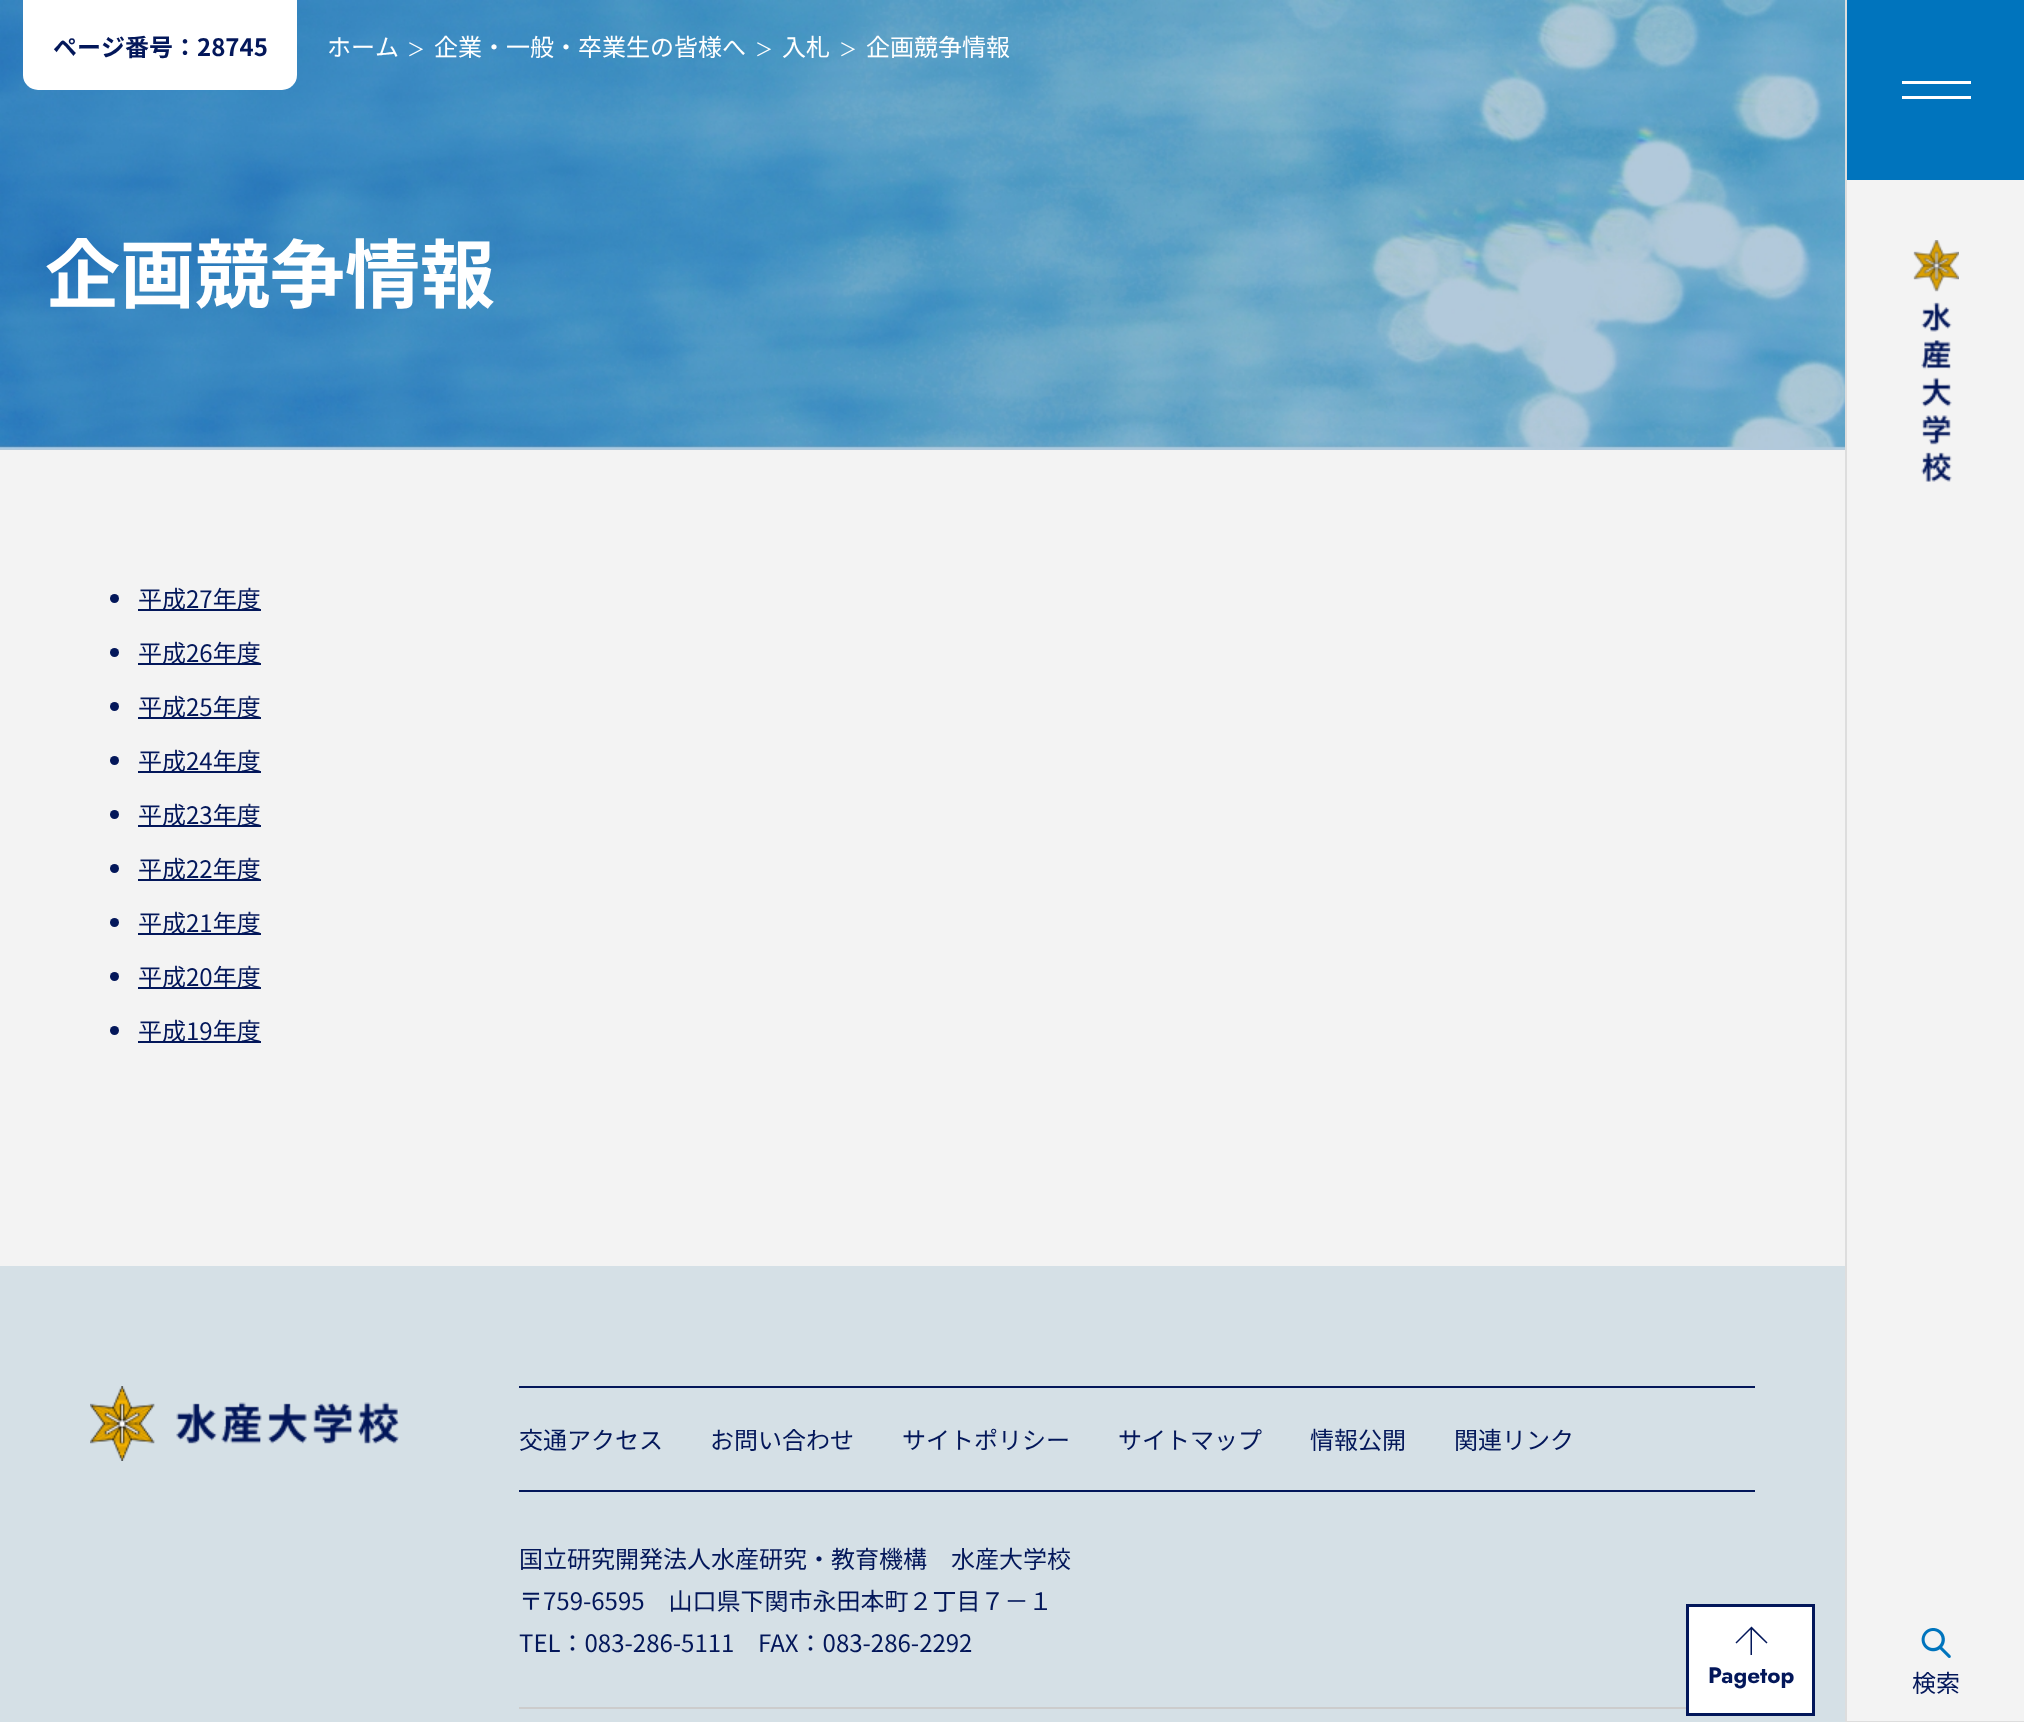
async function draw(canvas) {
  canvas.width = 2024
  canvas.height = 1722
  const ctx = canvas.getContext('2d')
  ctx.miterLimit = 4
  ctx.fontKerning = 'normal'
  async function loadImage(src) {
    const img = new Image()
    img.src = src
    await img.decode()
    return img
  }

  ctx.fillStyle = '#f3f3f3'
  ctx.fillRect(0, 0, 2024, 1722)
  ctx.drawImage(await loadImage('image0.png'), 0, 0, 1845, 450)
  ctx.fillStyle = '#fff'
  ctx.beginPath()
  ctx.roundRect(23, 0, 274, 90, [0, 0, 15, 15])
  ctx.fill()
  ctx.font = 'bold 24px Noto Sans JP'
  ctx.fillStyle = '#03175a'
  ctx.fillText('ページ番号：28745', 53, 56)
  ctx.font = '24px Noto Sans JP'
  ctx.fillStyle = '#fff'
  ctx.fillText('ホーム', 327, 56)
  ctx.font = '18px Noto Sans JP'
  ctx.fillText('＞', 407, 56)
  ctx.font = '24px Noto Sans JP'
  ctx.fillText('企業・一般・卒業生の皆様へ', 434, 56)
  ctx.font = '18px Noto Sans JP'
  ctx.fillText('＞', 755, 56)
  ctx.font = '24px Noto Sans JP'
  ctx.fillText('入札', 782, 56)
  ctx.font = '18px Noto Sans JP'
  ctx.fillText('＞', 839, 56)
  ctx.font = '24px Noto Sans JP'
  ctx.fillText('企画競争情報', 866, 56)
  ctx.font = 'bold 75px Noto Sans JP'
  ctx.fillText('企画競争情報', 45, 302)
  ctx.fillStyle = '#03175a'
  ctx.beginPath()
  ctx.arc(114.5, 598.5, 4.5, 0, 2 * Math.PI)
  ctx.fill()
  ctx.fillRect(138, 609, 123, 2)
  ctx.font = '24px Noto Sans JP'
  ctx.fillText('平成27年度', 138, 608)
  ctx.beginPath()
  ctx.arc(114.5, 652.5, 4.5, 0, 2 * Math.PI)
  ctx.fill()
  ctx.fillRect(138, 663, 123, 2)
  ctx.fillText('平成26年度', 138, 662)
  ctx.beginPath()
  ctx.arc(114.5, 706.5, 4.5, 0, 2 * Math.PI)
  ctx.fill()
  ctx.fillRect(138, 717, 123, 2)
  ctx.fillText('平成25年度', 138, 716)
  ctx.beginPath()
  ctx.arc(114.5, 760.5, 4.5, 0, 2 * Math.PI)
  ctx.fill()
  ctx.fillRect(138, 771, 123, 2)
  ctx.fillText('平成24年度', 138, 770)
  ctx.beginPath()
  ctx.arc(114.5, 814.5, 4.5, 0, 2 * Math.PI)
  ctx.fill()
  ctx.fillRect(138, 825, 123, 2)
  ctx.fillText('平成23年度', 138, 824)
  ctx.beginPath()
  ctx.arc(114.5, 868.5, 4.5, 0, 2 * Math.PI)
  ctx.fill()
  ctx.fillRect(138, 879, 123, 2)
  ctx.fillText('平成22年度', 138, 878)
  ctx.beginPath()
  ctx.arc(114.5, 922.5, 4.5, 0, 2 * Math.PI)
  ctx.fill()
  ctx.fillRect(138, 933, 123, 2)
  ctx.fillText('平成21年度', 138, 932)
  ctx.beginPath()
  ctx.arc(114.5, 976.5, 4.5, 0, 2 * Math.PI)
  ctx.fill()
  ctx.fillRect(138, 987, 123, 2)
  ctx.fillText('平成20年度', 138, 986)
  ctx.beginPath()
  ctx.arc(114.5, 1030.5, 4.5, 0, 2 * Math.PI)
  ctx.fill()
  ctx.fillRect(138, 1041, 123, 2)
  ctx.fillText('平成19年度', 138, 1040)
  ctx.fillStyle = '#d5e0e6'
  ctx.fillRect(0, 1266, 1845, 456)
  ctx.drawImage(await loadImage('image1.png'), 90, 1386, 309, 75)
  ctx.fillStyle = '#03175a'
  ctx.fillRect(519, 1386, 1236, 2)
  ctx.fillText('交通アクセス', 519, 1449)
  ctx.fillText('お問い合わせ', 710, 1449)
  ctx.fillText('サイトポリシー', 902, 1449)
  ctx.fillText('サイトマップ', 1118, 1449)
  ctx.fillText('情報公開', 1310, 1449)
  ctx.fillText('関連リンク', 1454, 1449)
  ctx.fillRect(519, 1490, 1236, 2)
  ctx.fillText('国立研究開発法人水産研究・教育機構　水産大学校', 519, 1568)
  ctx.fillText('〒759-6595　山口県下関市永田本町２丁目７－１', 519, 1610)
  ctx.fillText('TEL：083-286-5111', 519, 1652)
  ctx.fillText('FAX：083-286-2292', 758, 1652)
  ctx.fillStyle = '#ccc'
  ctx.fillRect(519, 1707, 1167, 2)
  ctx.fillStyle = '#fff'
  ctx.beginPath()
  ctx.rect(1687.5, 1605.5, 126, 109)
  ctx.fill()
  ctx.strokeStyle = '#03175a'
  ctx.lineWidth = 3
  ctx.stroke()
  ctx.fillStyle = '#03175a'
  ctx.beginPath()
  ctx.moveTo(1750.5, 1655)
  ctx.lineTo(1750.5, 1629.5)
  ctx.lineTo(1736.5, 1643.5)
  ctx.lineTo(1735.5, 1642.5)
  ctx.lineTo(1751.5, 1626.5)
  ctx.lineTo(1767.5, 1642.5)
  ctx.lineTo(1766.5, 1643.5)
  ctx.lineTo(1752, 1629.5)
  ctx.lineTo(1752, 1655)
  ctx.closePath()
  ctx.fill()
  ctx.font = 'bold 22.5px Jost'
  ctx.fillText('Pagetop', 1708, 1683)
  ctx.fillStyle = '#ddd'
  ctx.fillRect(1845, 0, 2, 1722)
  ctx.fillStyle = '#0074bd'
  ctx.fillRect(1847, 0, 177, 180)
  ctx.fillStyle = '#fff'
  ctx.fillRect(1902, 81, 69, 3)
  ctx.fillRect(1902, 96, 69, 3)
  ctx.drawImage(await loadImage('image2.png'), 1913, 240, 46, 242)
  ctx.fillStyle = '#ddd'
  ctx.fillRect(1847, 1721, 177, 1)
  ctx.drawImage(await loadImage('image3.png'), 1921, 1628, 30, 30)
  ctx.font = '24px Noto Sans JP'
  ctx.fillStyle = '#03175a'
  ctx.fillText('検索', 1912, 1692)
}

draw(document.querySelector('canvas'))
